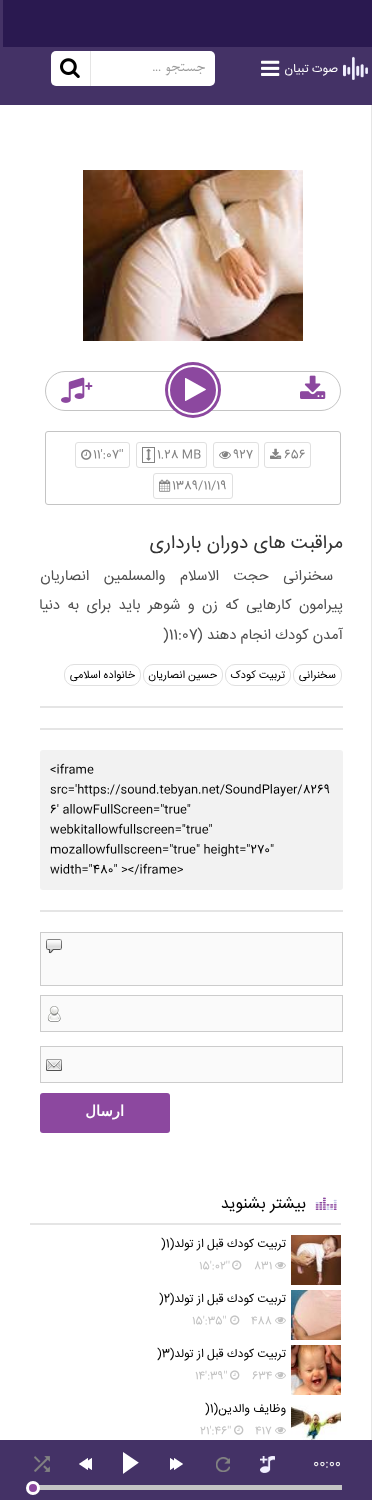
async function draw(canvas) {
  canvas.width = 372
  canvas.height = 1500
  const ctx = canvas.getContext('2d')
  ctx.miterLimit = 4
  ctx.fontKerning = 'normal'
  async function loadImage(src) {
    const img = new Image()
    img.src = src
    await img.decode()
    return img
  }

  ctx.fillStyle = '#443266'
  ctx.fillRect(0, 0, 372, 1500)
  ctx.fillStyle = '#2a1950'
  ctx.fillRect(3, 0, 369, 47)
  ctx.drawImage(await loadImage('image0.png'), 343, 56, 25, 24)
  ctx.direction = 'rtl'
  ctx.font = '12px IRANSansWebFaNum'
  ctx.fillStyle = '#fff'
  ctx.fillText('صوت تبیان', 338, 72)
  ctx.drawImage(await loadImage('image1.png'), 261, 60, 19, 16)
  ctx.beginPath()
  ctx.roundRect(51, 51, 164, 35, 5)
  ctx.fill()
  ctx.font = '17.5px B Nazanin'
  ctx.fillStyle = '#9a9a9a'
  ctx.fillText('جستجو ...', 205, 71)
  ctx.fillStyle = '#e5e5e5'
  ctx.fillRect(90, 51, 1, 35)
  ctx.drawImage(await loadImage('image2.png'), 60, 58, 20, 20)
  ctx.fillRect(371, 105, 1, 1335)
  ctx.fillStyle = '#fff'
  ctx.fillRect(0, 105, 371, 1335)
  ctx.drawImage(await loadImage('image3.png'), 83, 170, 220, 171)
  ctx.beginPath()
  ctx.roundRect(45.5, 371.5, 295, 39, 19.5)
  ctx.strokeStyle = '#c4c4c4'
  ctx.stroke()
  ctx.drawImage(await loadImage('image4.png'), 300, 375, 26, 24)
  ctx.fillStyle = '#8c489f'
  ctx.beginPath()
  ctx.arc(193, 390, 28, 0, 2 * Math.PI)
  ctx.fill()
  ctx.drawImage(await loadImage('image5.png'), 185, 378, 21, 23)
  ctx.beginPath()
  ctx.arc(193, 390, 24, 0, 2 * Math.PI)
  ctx.strokeStyle = '#fff'
  ctx.lineWidth = 2
  ctx.stroke()
  ctx.direction = 'ltr'
  ctx.font = 'bold 13px IRANSansWebFaNum'
  ctx.fillText('+', 85, 390)
  ctx.drawImage(await loadImage('image6.png'), 61, 377, 24, 26)
  ctx.beginPath()
  ctx.roundRect(45.5, 431.5, 295, 73, 2.5)
  ctx.strokeStyle = '#c4c4c4'
  ctx.lineWidth = 1
  ctx.stroke()
  ctx.beginPath()
  ctx.roundRect(264.5, 442.5, 46, 25, 2.5)
  ctx.strokeStyle = '#e0e0e0'
  ctx.stroke()
  ctx.font = '12px IRANSansWebFaNum'
  ctx.fillStyle = '#828282'
  ctx.fillText('656', 284, 458)
  ctx.drawImage(await loadImage('image7.png'), 270, 448, 12, 11)
  ctx.beginPath()
  ctx.roundRect(213.5, 442.5, 45, 25, 2.5)
  ctx.stroke()
  ctx.fillText('927', 233, 458)
  ctx.drawImage(await loadImage('image8.png'), 219, 451, 12, 8)
  ctx.beginPath()
  ctx.roundRect(136.5, 442.5, 70, 25, 2.5)
  ctx.stroke()
  ctx.fillText('1.28 MB', 157, 458)
  ctx.strokeStyle = '#828282'
  ctx.strokeRect(142.5, 447.5, 12, 15)
  ctx.drawImage(await loadImage('image9.png'), 146, 448, 5, 13)
  ctx.beginPath()
  ctx.roundRect(75.5, 442.5, 54, 25, 2.5)
  ctx.strokeStyle = '#e0e0e0'
  ctx.stroke()
  ctx.fillText('11\':07\'\'', 93, 458)
  ctx.drawImage(await loadImage('image10.png'), 81, 449, 11, 11)
  ctx.beginPath()
  ctx.roundRect(153.5, 473.5, 79, 25, 2.5)
  ctx.stroke()
  ctx.fillText('1389/11/19', 172, 489)
  ctx.drawImage(await loadImage('image11.png'), 159, 479, 12, 13)
  ctx.direction = 'rtl'
  ctx.font = '18.75px IRANSansWebFaNum'
  ctx.fillStyle = '#333'
  ctx.fillText('مراقبت های دوران بارداری', 343, 548)
  ctx.wordSpacing = '10.5px'
  ctx.font = '14.7px IRANSansWebFaNum'
  ctx.fillStyle = '#4f4f4f'
  ctx.fillText('سخنرانی حجت الاسلام والمسلمين انصاریان', 333, 580)
  ctx.wordSpacing = '3.25px'
  ctx.fillText('پیرامون كارهايی كه زن و شوهر بايد برای به دنيا', 343, 609)
  ctx.wordSpacing = '0px'
  ctx.fillText('آمدن كودك انجام دهند (', 343, 639)
  ctx.direction = 'ltr'
  ctx.fillText(')11:07', 163, 639)
  ctx.beginPath()
  ctx.roundRect(293.5, 664.5, 48, 21, 9.5)
  ctx.stroke()
  ctx.direction = 'rtl'
  ctx.font = '11px IRANSansWebFaNum'
  ctx.fillStyle = '#000'
  ctx.fillText('سخنرانی', 336, 678)
  ctx.beginPath()
  ctx.roundRect(225.5, 664.5, 65, 21, 9.5)
  ctx.stroke()
  ctx.fillText('تربیت کودک', 285, 678)
  ctx.beginPath()
  ctx.roundRect(143.5, 664.5, 79, 21, 9.5)
  ctx.stroke()
  ctx.fillText('حسین انصاریان', 217, 678)
  ctx.beginPath()
  ctx.roundRect(64.5, 664.5, 76, 21, 9.5)
  ctx.stroke()
  ctx.fillText('خانواده اسلامی', 135, 678)
  ctx.fillStyle = '#e5e5e5'
  ctx.fillRect(40, 706, 303, 2)
  ctx.fillRect(40, 728, 303, 2)
  ctx.fillStyle = '#f2f2f2'
  ctx.beginPath()
  ctx.roundRect(40, 750, 303, 140, 3)
  ctx.fill()
  ctx.direction = 'ltr'
  ctx.font = '12px IRANSansWebFaNum'
  ctx.fillStyle = '#000'
  ctx.fillText('<iframe', 50, 773)
  ctx.fillText('src=\'https://sound.tebyan.net/SoundPlayer/8269', 50, 793)
  ctx.fillText('6\' allowFullScreen="true"', 50, 813)
  ctx.fillText('webkitallowfullscreen="true"', 50, 833)
  ctx.fillText('mozallowfullscreen="true" height="270"', 50, 853)
  ctx.fillText('width="480" ><\/iframe>', 50, 873)
  ctx.fillStyle = '#e5e5e5'
  ctx.fillRect(40, 910, 303, 2)
  ctx.fillStyle = '#fafafa'
  ctx.fillRect(41, 933, 301, 52)
  ctx.drawImage(await loadImage('image12.png'), 46, 939, 16, 15)
  ctx.strokeStyle = '#ccc'
  ctx.strokeRect(40.5, 932.5, 302, 53)
  ctx.fillRect(41, 996, 301, 35)
  ctx.drawImage(await loadImage('image13.png'), 47, 1006, 14, 16)
  ctx.strokeRect(40.5, 995.5, 302, 36)
  ctx.fillRect(41, 1047, 301, 35)
  ctx.drawImage(await loadImage('image14.png'), 46, 1059, 16, 12)
  ctx.strokeRect(40.5, 1046.5, 302, 36)
  ctx.fillStyle = '#8c489f'
  ctx.beginPath()
  ctx.roundRect(40, 1093, 130, 40, 3)
  ctx.fill()
  ctx.direction = 'rtl'
  ctx.font = 'bold 14.7px DejaVu Sans'
  ctx.fillStyle = '#fff'
  ctx.fillText('ارسال', 124, 1116)
  ctx.drawImage(await loadImage('image15.png'), 315, 1197, 22, 13)
  ctx.font = '16px IRANSansWebFaNum'
  ctx.fillStyle = '#000'
  ctx.fillText('بیشتر بشنوید', 306, 1208)
  ctx.fillStyle = '#e5e5e5'
  ctx.fillRect(30, 1223, 311, 2)
  ctx.drawImage(await loadImage('image16.png'), 291, 1235, 50, 50)
  ctx.font = '12px IRANSansWebFaNum'
  ctx.fillStyle = '#000'
  ctx.fillText('تربيت كودك قبل از تولد(', 286, 1247)
  ctx.direction = 'ltr'
  ctx.fillText(')1', 161, 1247)
  ctx.drawImage(await loadImage('image17.png'), 275, 1262, 11, 7)
  ctx.font = '11px IRANSansWebFaNum'
  ctx.fillStyle = '#c2c2c2'
  ctx.fillText('831', 254, 1269)
  ctx.drawImage(await loadImage('image18.png'), 232, 1260, 10, 10)
  ctx.fillText('15\':02\'\'', 199, 1269)
  ctx.drawImage(await loadImage('image19.png'), 291, 1290, 50, 50)
  ctx.direction = 'rtl'
  ctx.font = '12px IRANSansWebFaNum'
  ctx.fillStyle = '#000'
  ctx.fillText('تربيت كودك قبل از تولد(', 286, 1302)
  ctx.direction = 'ltr'
  ctx.fillText(')2', 159, 1302)
  ctx.drawImage(await loadImage('image17.png'), 275, 1317, 11, 7)
  ctx.font = '11px IRANSansWebFaNum'
  ctx.fillStyle = '#c2c2c2'
  ctx.fillText('488', 251, 1324)
  ctx.drawImage(await loadImage('image18.png'), 230, 1315, 10, 10)
  ctx.fillText('15\':35\'\'', 192, 1324)
  ctx.drawImage(await loadImage('image20.png'), 291, 1345, 50, 50)
  ctx.direction = 'rtl'
  ctx.font = '12px IRANSansWebFaNum'
  ctx.fillStyle = '#000'
  ctx.fillText('تربيت كودك قبل از تولد(', 286, 1357)
  ctx.direction = 'ltr'
  ctx.fillText(')3', 157, 1357)
  ctx.drawImage(await loadImage('image17.png'), 275, 1372, 11, 7)
  ctx.font = '11px IRANSansWebFaNum'
  ctx.fillStyle = '#c2c2c2'
  ctx.fillText('634', 252, 1379)
  ctx.drawImage(await loadImage('image18.png'), 230, 1370, 10, 10)
  ctx.fillText('14\':39\'\'', 195, 1379)
  ctx.drawImage(await loadImage('image21.png'), 291, 1405, 50, 35)
  ctx.direction = 'rtl'
  ctx.font = '12px IRANSansWebFaNum'
  ctx.fillStyle = '#000'
  ctx.fillText('وظايف والدين(', 286, 1412)
  ctx.direction = 'ltr'
  ctx.fillText(')1', 205, 1412)
  ctx.drawImage(await loadImage('image17.png'), 275, 1427, 11, 7)
  ctx.font = '11px IRANSansWebFaNum'
  ctx.fillStyle = '#c2c2c2'
  ctx.fillText('417', 255, 1434)
  ctx.drawImage(await loadImage('image18.png'), 234, 1425, 10, 10)
  ctx.fillText('21\':46\'\'', 200, 1434)
  ctx.font = '13px IRANSansWebFaNum'
  ctx.fillStyle = '#f2f2f2'
  ctx.fillText('00:00', 313, 1467)
  ctx.drawImage(await loadImage('image22.png'), 260, 1456, 15, 17)
  ctx.drawImage(await loadImage('image23.png'), 216, 1457, 14, 15)
  ctx.drawImage(await loadImage('image24.png'), 170, 1458, 13, 12)
  ctx.drawImage(await loadImage('image25.png'), 123, 1452, 16, 22)
  ctx.drawImage(await loadImage('image26.png'), 79, 1458, 13, 12)
  ctx.drawImage(await loadImage('image27.png'), 34, 1456, 16, 16)
  ctx.fillStyle = '#c4c4c4'
  ctx.fillRect(39, 1485, 303, 5)
  ctx.fillStyle = '#8c489f'
  ctx.beginPath()
  ctx.arc(33, 1488, 5.5, 0, 2 * Math.PI)
  ctx.fill()
  ctx.strokeStyle = '#fff'
  ctx.lineWidth = 3
  ctx.stroke()
}

draw(document.querySelector('canvas'))
